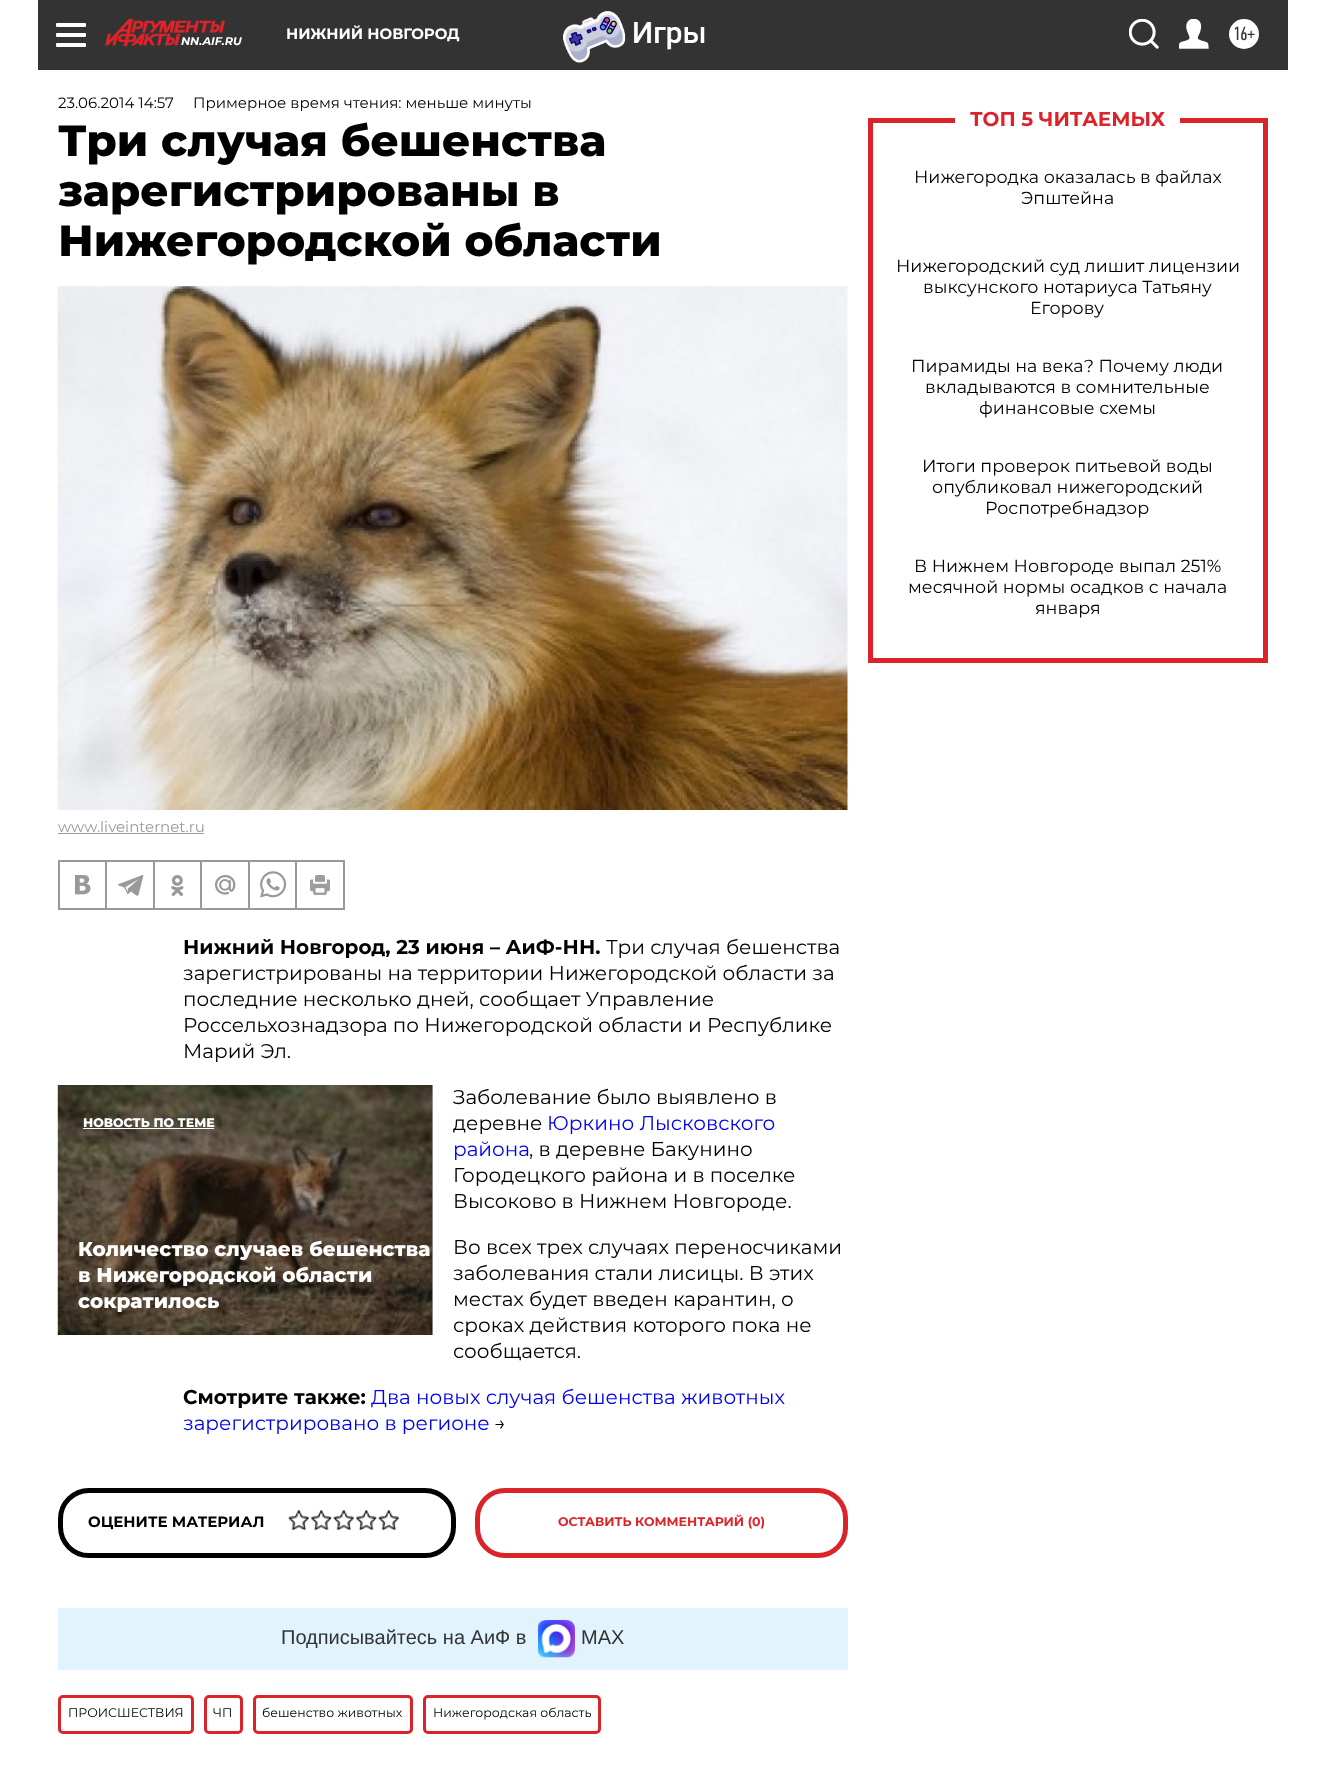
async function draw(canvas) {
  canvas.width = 1324
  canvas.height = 1778
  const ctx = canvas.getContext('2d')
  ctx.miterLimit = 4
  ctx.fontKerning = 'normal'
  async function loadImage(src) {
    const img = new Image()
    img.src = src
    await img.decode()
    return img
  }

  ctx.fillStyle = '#fff'
  ctx.fillRect(0, 0, 1324, 1778)
  ctx.fillStyle = '#a6a6a6'
  ctx.fillRect(432, 1085, 1, 250)
  ctx.fillStyle = '#333'
  ctx.fillRect(38, 0, 1250, 70)
  ctx.fillStyle = '#fff'
  ctx.beginPath()
  ctx.roundRect(56, 23, 30, 4, 1)
  ctx.fill()
  ctx.beginPath()
  ctx.roundRect(56, 33, 30, 4, 1)
  ctx.fill()
  ctx.beginPath()
  ctx.roundRect(56, 43, 30, 4, 1)
  ctx.fill()
  ctx.drawImage(await loadImage('image0.png'), 105, 19, 120, 27)
  ctx.font = 'italic bold 11.25px Montserrat'
  ctx.fillText('NN.AIF.RU', 181, 45)
  ctx.font = 'bold 15px Montserrat'
  ctx.fillText('НИЖНИЙ НОВГОРОД', 286, 39)
  ctx.drawImage(await loadImage('image1.png'), 563, 11, 142, 52)
  ctx.drawImage(await loadImage('image2.png'), 1129, 19, 30, 30)
  ctx.drawImage(await loadImage('image3.png'), 1179, 19, 30, 30)
  ctx.beginPath()
  ctx.arc(1244, 34, 15, 0, 2 * Math.PI)
  ctx.fill()
  ctx.font = '19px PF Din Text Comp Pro'
  ctx.fillStyle = '#333'
  ctx.fillText('16+', 1233, 40)
  ctx.font = '15px Montserrat'
  ctx.fillStyle = '#000'
  ctx.fillText('23.06.2014 14:57', 58, 108)
  ctx.fillText('Примерное время чтения: меньше минуты', 193, 108)
  ctx.font = '800 43.75px Montserrat'
  ctx.fillText('Три случая бешенства', 58, 156)
  ctx.fillText('зарегистрированы в', 58, 206)
  ctx.fillText('Нижегородской области', 58, 256)
  ctx.drawImage(await loadImage('image4.png'), 57, 286, 791, 524)
  ctx.font = '15px Montserrat'
  ctx.fillStyle = '#999'
  ctx.fillText('www.liveinternet.ru', 58, 832)
  ctx.fillRect(58, 833, 146, 1)
  ctx.strokeStyle = '#999'
  ctx.strokeRect(58.5, 860.5, 286, 49)
  ctx.strokeRect(59.5, 861.5, 46, 47)
  ctx.drawImage(await loadImage('image5.png'), 75, 875, 16, 20)
  ctx.strokeRect(106.5, 861.5, 47, 47)
  ctx.drawImage(await loadImage('image6.png'), 118, 875, 26, 21)
  ctx.strokeRect(154.5, 861.5, 46, 47)
  ctx.drawImage(await loadImage('image7.png'), 171, 875, 13, 21)
  ctx.strokeRect(201.5, 861.5, 47, 47)
  ctx.drawImage(await loadImage('image8.png'), 215, 875, 21, 20)
  ctx.strokeRect(249.5, 861.5, 46, 47)
  ctx.drawImage(await loadImage('image9.png'), 260, 871, 27, 27)
  ctx.strokeRect(296.5, 861.5, 47, 47)
  ctx.drawImage(await loadImage('image10.png'), 310, 875, 20, 20)
  ctx.font = 'bold 20px Montserrat'
  ctx.fillStyle = '#000'
  ctx.fillText('Нижний Новгород, 23 июня – АиФ-НН.', 183, 954)
  ctx.font = '20px Montserrat'
  ctx.fillText('Три случая бешенства', 606, 954)
  ctx.fillText('зарегистрированы на территории Нижегородской области за', 183, 980)
  ctx.fillText('последние несколько дней, сообщает Управление', 183, 1006)
  ctx.fillText('Россельхознадзора по Нижегородской области и Республике', 183, 1032)
  ctx.fillText('Марий Эл.', 183, 1058)
  ctx.drawImage(await loadImage('image11.png'), 57, 1085, 376, 250)
  ctx.font = '800 12.5px Montserrat'
  ctx.fillStyle = '#fff'
  ctx.fillText('НОВОСТЬ ПО ТЕМЕ', 83, 1127)
  ctx.fillRect(83, 1128, 131, 1)
  ctx.font = '800 20px Montserrat'
  ctx.fillText('Количество случаев бешенства', 78, 1256)
  ctx.fillText('в Нижегородской области', 78, 1282)
  ctx.fillText('сократилось', 78, 1308)
  ctx.font = '20px Montserrat'
  ctx.fillStyle = '#000'
  ctx.fillText('Заболевание было выявлено в', 453, 1104)
  ctx.fillText('деревне', 453, 1130)
  ctx.fillStyle = '#00e'
  ctx.fillText('Юркино Лысковского', 547, 1130)
  ctx.fillText('района', 453, 1156)
  ctx.fillStyle = '#000'
  ctx.fillText(', в деревне Бакунино', 529, 1156)
  ctx.fillText('Городецкого района и в поселке', 453, 1182)
  ctx.fillText('Высоково в Нижнем Новгороде.', 453, 1208)
  ctx.fillText('Во всех трех случаях переносчиками', 453, 1254)
  ctx.fillText('заболевания стали лисицы. В этих', 453, 1280)
  ctx.fillText('местах будет введен карантин, о', 453, 1306)
  ctx.fillText('сроках действия которого пока не', 453, 1332)
  ctx.fillText('сообщается.', 453, 1358)
  ctx.font = 'bold 20px Montserrat'
  ctx.fillText('Смотрите также:', 183, 1404)
  ctx.font = '20px Montserrat'
  ctx.fillStyle = '#00e'
  ctx.fillText('Два новых случая бешенства животных', 371, 1404)
  ctx.fillText('зарегистрировано в регионе', 183, 1430)
  ctx.fillStyle = '#000'
  ctx.fillText('→', 494, 1430)
  ctx.beginPath()
  ctx.roundRect(60.5, 1490.5, 393, 65, 28.5)
  ctx.strokeStyle = '#000'
  ctx.lineWidth = 5
  ctx.stroke()
  ctx.font = 'bold 15px Montserrat'
  ctx.fillText('ОЦЕНИТЕ МАТЕРИАЛ', 88, 1527)
  ctx.drawImage(await loadImage('image12.png'), 288, 1510, 21, 20)
  ctx.drawImage(await loadImage('image13.png'), 311, 1510, 21, 20)
  ctx.drawImage(await loadImage('image14.png'), 333, 1510, 21, 20)
  ctx.drawImage(await loadImage('image13.png'), 356, 1510, 21, 20)
  ctx.drawImage(await loadImage('image12.png'), 378, 1510, 21, 20)
  ctx.beginPath()
  ctx.roundRect(477.5, 1490.5, 368, 65, 27.5)
  ctx.strokeStyle = '#da2429'
  ctx.stroke()
  ctx.font = 'bold 12.5px Montserrat'
  ctx.fillStyle = '#da2429'
  ctx.fillText('ОСТАВИТЬ КОММЕНТАРИЙ (0)', 558, 1526)
  ctx.fillStyle = '#e1f3fc'
  ctx.fillRect(58, 1608, 790, 62)
  ctx.font = '20px Liberation Sans'
  ctx.fillStyle = '#333'
  ctx.fillText('Подписывайтесь на АиФ в', 281, 1644)
  ctx.drawImage(await loadImage('image15.png'), 538, 1620, 37, 38)
  ctx.fillText('MAX', 581, 1644)
  ctx.beginPath()
  ctx.roundRect(59.5, 1696.5, 133, 36, 3.5)
  ctx.lineWidth = 3
  ctx.stroke()
  ctx.font = '12.5px Montserrat'
  ctx.fillStyle = '#000'
  ctx.fillText('ПРОИСШЕСТВИЯ', 68, 1717)
  ctx.beginPath()
  ctx.roundRect(205.5, 1696.5, 36, 36, 3.5)
  ctx.stroke()
  ctx.fillText('ЧП', 213, 1717)
  ctx.beginPath()
  ctx.roundRect(254.5, 1696.5, 157, 36, 3.5)
  ctx.stroke()
  ctx.fillText('бешенство животных', 262, 1717)
  ctx.beginPath()
  ctx.roundRect(424.5, 1696.5, 175, 36, 3.5)
  ctx.stroke()
  ctx.fillText('Нижегородская область', 433, 1717)
  ctx.fillStyle = '#da2429'
  ctx.fillRect(1263, 118, 5, 545)
  ctx.fillRect(868, 658, 400, 5)
  ctx.fillRect(868, 118, 5, 545)
  ctx.fillRect(868, 118, 87, 5)
  ctx.font = 'bold 20px Montserrat'
  ctx.fillText('ТОП 5 ЧИТАЕМЫХ', 970, 126)
  ctx.fillRect(1180, 118, 88, 5)
  ctx.font = '17.5px Montserrat'
  ctx.fillStyle = '#000'
  ctx.fillText('Нижегородка оказалась в файлах', 914, 183)
  ctx.fillText('Эпштейна', 1021, 204)
  ctx.fillText('Нижегородский суд лишит лицензии', 896, 272)
  ctx.fillText('выксунского нотариуса Татьяну', 923, 293)
  ctx.fillText('Егорову', 1030, 314)
  ctx.fillText('Пирамиды на века? Почему люди', 911, 372)
  ctx.fillText('вкладываются в сомнительные', 925, 393)
  ctx.fillText('финансовые схемы', 979, 414)
  ctx.fillText('Итоги проверок питьевой воды', 922, 472)
  ctx.fillText('опубликовал нижегородский', 932, 493)
  ctx.fillText('Роспотребнадзор', 985, 514)
  ctx.fillText('В Нижнем Новгороде выпал 251%', 914, 572)
  ctx.fillText('месячной нормы осадков с начала', 908, 593)
  ctx.fillText('января', 1035, 614)
}

draw(document.querySelector('canvas'))
